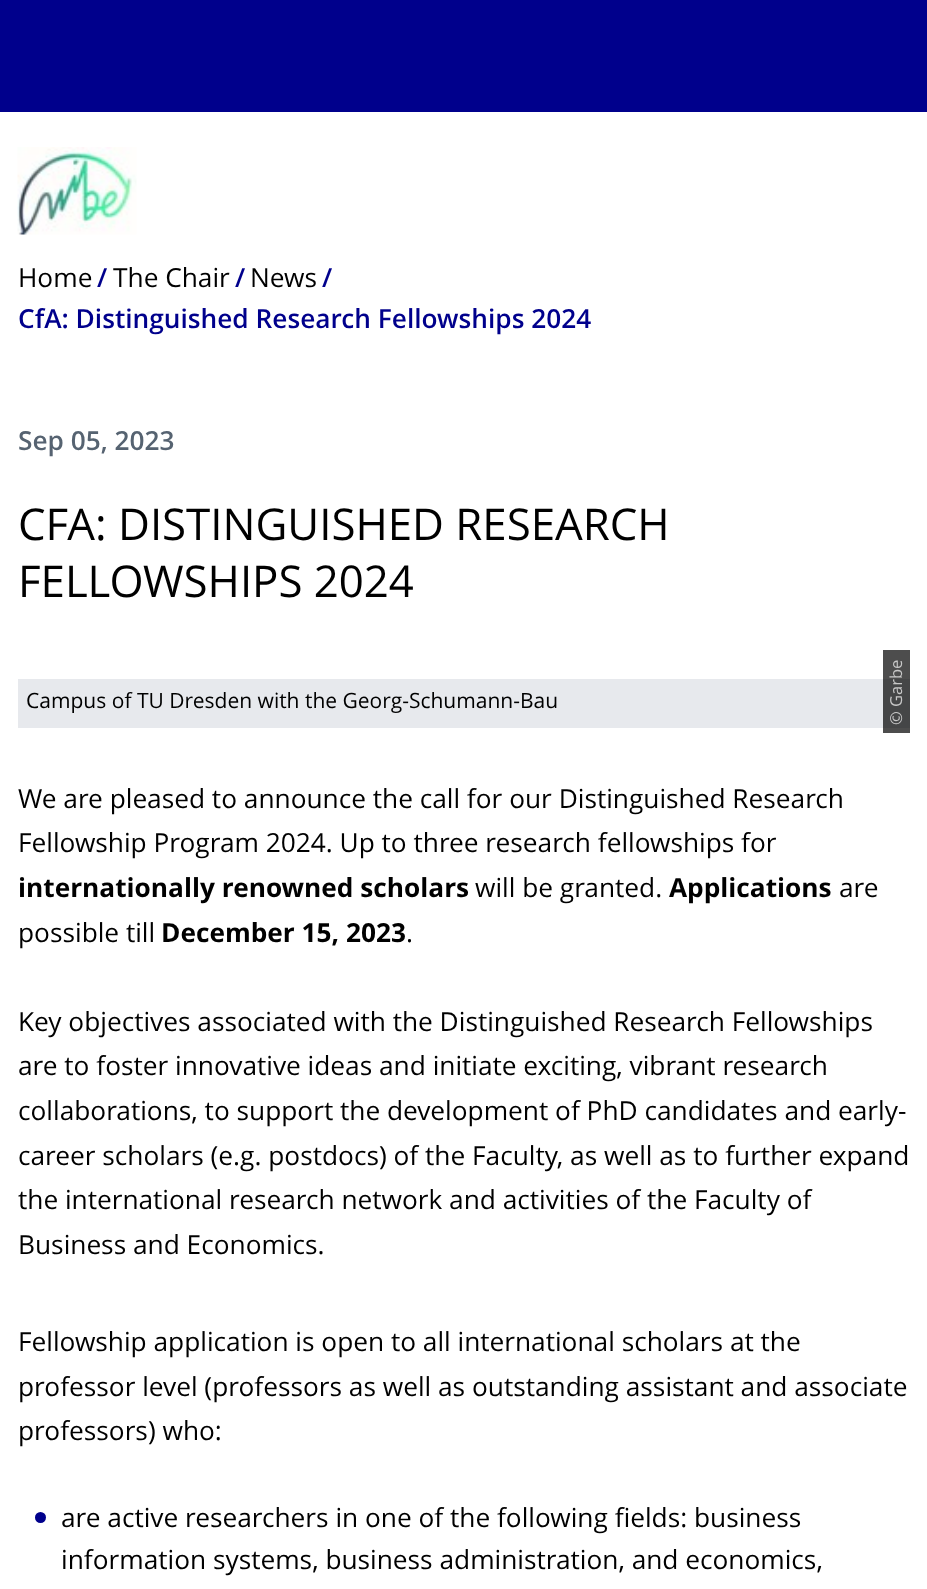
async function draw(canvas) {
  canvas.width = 927
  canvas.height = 1589
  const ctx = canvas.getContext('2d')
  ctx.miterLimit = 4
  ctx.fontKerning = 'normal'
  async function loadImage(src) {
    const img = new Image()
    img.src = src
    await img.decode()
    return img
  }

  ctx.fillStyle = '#fff'
  ctx.fillRect(0, 0, 927, 1589)
  ctx.fillStyle = '#4d4d4d'
  ctx.fillRect(883, 650, 27, 83)
  ctx.fillStyle = '#00008c'
  ctx.fillRect(0, 0, 927, 112)
  ctx.drawImage(await loadImage('image0.png'), 17, 147, 120, 88)
  ctx.font = '26.25px Open Sans'
  ctx.fillStyle = '#000'
  ctx.fillText('Home', 18, 287)
  ctx.font = '600 26.25px Open Sans'
  ctx.fillStyle = '#00008c'
  ctx.fillText('/', 97, 287)
  ctx.font = '26.25px Open Sans'
  ctx.fillStyle = '#000'
  ctx.fillText('The Chair', 113, 287)
  ctx.font = '600 26.25px Open Sans'
  ctx.fillStyle = '#00008c'
  ctx.fillText('/', 235, 287)
  ctx.font = '26.25px Open Sans'
  ctx.fillStyle = '#000'
  ctx.fillText('News', 250, 287)
  ctx.font = '600 26.25px Open Sans'
  ctx.fillStyle = '#00008c'
  ctx.fillText('/', 322, 287)
  ctx.fillText('CfA: Distinguished Research Fellowships 2024', 18, 328)
  ctx.fillStyle = '#566371'
  ctx.fillText('Sep 05, 2023', 18, 450)
  ctx.font = '43.75px Open Sans'
  ctx.fillStyle = '#000'
  ctx.fillText('CFA: DISTINGUISHED RESEARCH', 18, 540)
  ctx.fillText('FELLOWSHIPS 2024', 18, 597)
  ctx.fillStyle = '#e7e9ed'
  ctx.fillRect(18, 679, 865, 49)
  ctx.fillStyle = '#454647'
  ctx.fillRect(883, 679, 27, 49)
  ctx.font = '21px Open Sans'
  ctx.fillStyle = '#000'
  ctx.fillText('Campus of TU Dresden with the Georg-Schumann-Bau', 26, 708)
  ctx.font = '16.5px Open Sans'
  ctx.fillStyle = '#c8c8c8'
  ctx.save()
  ctx.translate(902, 725)
  ctx.rotate(-90 * Math.PI / 180)
  ctx.fillText('© Garbe', 0, 0)
  ctx.restore()
  ctx.font = '26.25px Open Sans'
  ctx.fillStyle = '#000'
  ctx.fillText('We are pleased to announce the call for our Distinguished Research', 18, 808)
  ctx.fillText('Fellowship Program 2024. Up to three research fellowships for', 18, 852)
  ctx.font = 'bold 26.25px Open Sans'
  ctx.fillText('internationally renowned scholars', 18, 897)
  ctx.font = '26.25px Open Sans'
  ctx.fillText('will be granted.', 475, 897)
  ctx.font = 'bold 26.25px Open Sans'
  ctx.fillText('Applications', 669, 897)
  ctx.font = '26.25px Open Sans'
  ctx.fillText('are', 839, 897)
  ctx.fillText('possible till', 18, 942)
  ctx.font = 'bold 26.25px Open Sans'
  ctx.fillText('December 15, 2023', 161, 942)
  ctx.font = '26.25px Open Sans'
  ctx.fillText('.', 406, 942)
  ctx.fillText('Key objectives associated with the Distinguished Research Fellowships', 18, 1031)
  ctx.fillText('are to foster innovative ideas and initiate exciting, vibrant research', 18, 1075)
  ctx.fillText('collaborations, to support the development of PhD candidates and early-', 18, 1120)
  ctx.fillText('career scholars (e.g. postdocs) of the Faculty, as well as to further expand', 18, 1165)
  ctx.fillText('the international research network and activities of the Faculty of', 18, 1209)
  ctx.fillText('Business and Economics.', 18, 1254)
  ctx.fillText('Fellowship application is open to all international scholars at the', 18, 1351)
  ctx.fillText('professor level (professors as well as outstanding assistant and associate', 18, 1396)
  ctx.fillText('professors) who:', 18, 1440)
  ctx.fillStyle = '#00008c'
  ctx.beginPath()
  ctx.arc(40.5, 1517.5, 5.5, 0, 2 * Math.PI)
  ctx.fill()
  ctx.fillStyle = '#000'
  ctx.fillText('are active researchers in one of the following fields: business', 61, 1527)
  ctx.fillText('information systems, business administration, and economics,', 61, 1569)
}

draw(document.querySelector('canvas'))
